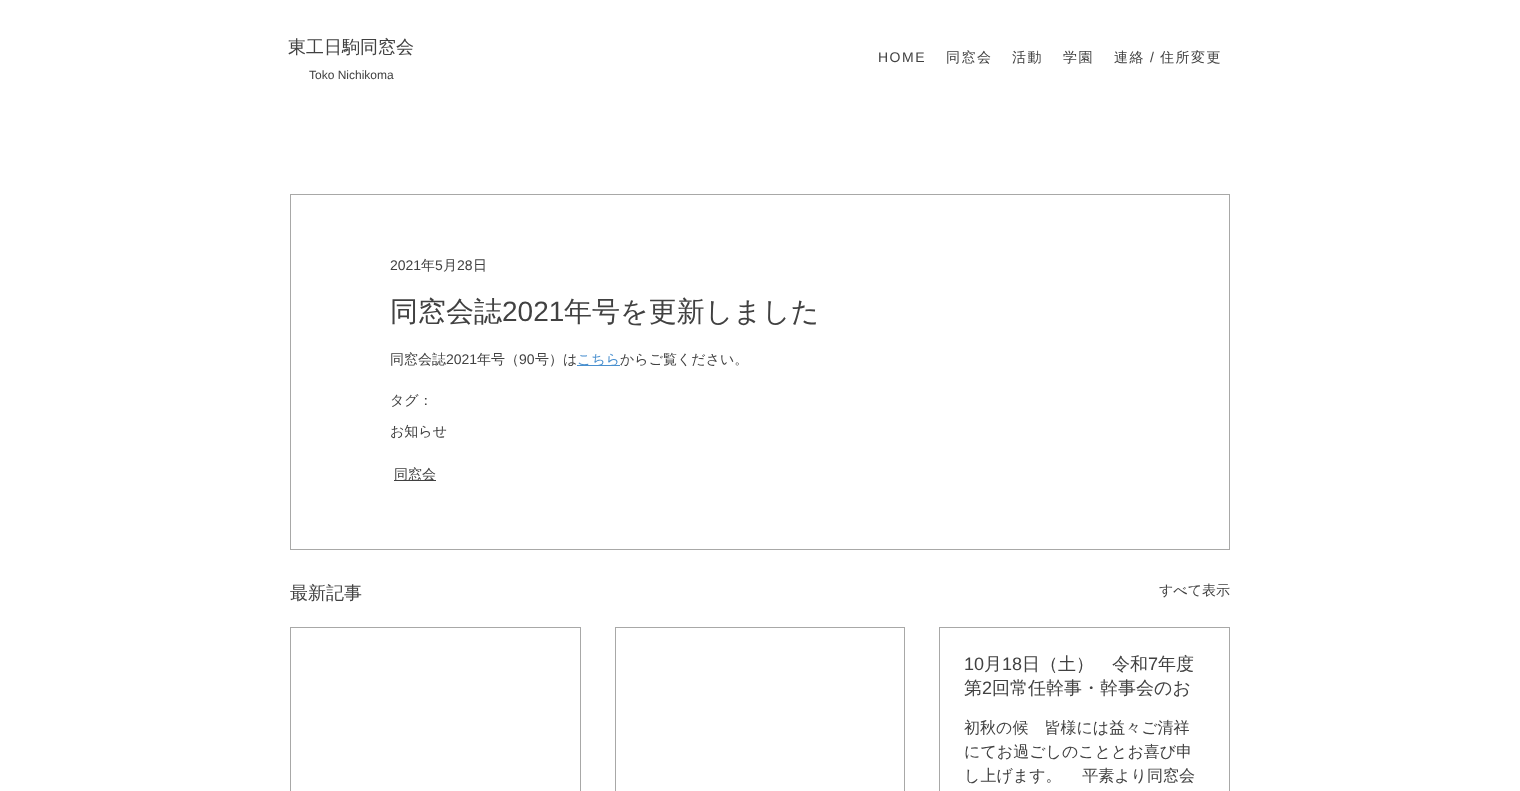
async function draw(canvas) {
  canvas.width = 1520
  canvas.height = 791
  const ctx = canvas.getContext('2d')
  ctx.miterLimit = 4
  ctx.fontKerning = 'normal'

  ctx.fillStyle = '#fff'
  ctx.fillRect(0, 0, 1520, 791)
  ctx.font = '500 18px WenQuanYi Zen Hei'
  ctx.fillStyle = '#414141'
  ctx.fillText('東工日駒同窓会', 288, 53)
  ctx.font = '12px Liberation Sans'
  ctx.fillText('Toko Nichikoma', 309, 79)
  ctx.letterSpacing = '1.5px'
  ctx.font = '14px Liberation Sans'
  ctx.fillText('HOME', 878, 62)
  ctx.font = '500 14px WenQuanYi Zen Hei'
  ctx.fillText('同窓会', 946, 62)
  ctx.fillText('活動', 1012, 62)
  ctx.fillText('学園', 1063, 62)
  ctx.fillText('連絡', 1114, 62)
  ctx.font = '14px Liberation Sans'
  ctx.fillText('/', 1150, 62)
  ctx.font = '500 14px WenQuanYi Zen Hei'
  ctx.fillText('住所変更', 1160, 62)
  ctx.strokeStyle = '#a8a8a7'
  ctx.strokeRect(290.5, 194.5, 939, 355)
  ctx.letterSpacing = '0px'
  ctx.font = '14px Liberation Sans'
  ctx.fillText('2021', 390, 270)
  ctx.font = '500 14px WenQuanYi Zen Hei'
  ctx.fillText('年', 421, 270)
  ctx.font = '14px Liberation Sans'
  ctx.fillText('5', 435, 270)
  ctx.font = '500 14px WenQuanYi Zen Hei'
  ctx.fillText('月', 443, 270)
  ctx.font = '14px Liberation Sans'
  ctx.fillText('28', 457, 270)
  ctx.font = '500 14px WenQuanYi Zen Hei'
  ctx.fillText('日', 473, 270)
  ctx.font = '500 28px WenQuanYi Zen Hei'
  ctx.fillText('同窓会誌', 390, 321)
  ctx.font = '28px Liberation Sans'
  ctx.fillText('2021', 502, 321)
  ctx.font = '500 28px WenQuanYi Zen Hei'
  ctx.fillText('年号を更新しました', 564, 321)
  ctx.font = '500 14px WenQuanYi Zen Hei'
  ctx.fillText('同窓会誌', 390, 364)
  ctx.font = '14px Liberation Sans'
  ctx.fillText('2021', 446, 364)
  ctx.font = '500 14px WenQuanYi Zen Hei'
  ctx.fillText('年号（', 477, 364)
  ctx.font = '14px Liberation Sans'
  ctx.fillText('90', 519, 364)
  ctx.font = '500 14px WenQuanYi Zen Hei'
  ctx.fillText('号）は', 535, 364)
  ctx.fillStyle = '#4a90cf'
  ctx.fillRect(577, 365, 43, 1)
  ctx.fillText('こちら', 577, 364)
  ctx.fillStyle = '#414141'
  ctx.fillText('からご覧ください。', 620, 364)
  ctx.fillText('タグ：', 390, 405)
  ctx.fillText('お知らせ', 390, 436)
  ctx.fillRect(394, 480, 42, 1)
  ctx.fillText('同窓会', 394, 479)
  ctx.font = '500 18px WenQuanYi Zen Hei'
  ctx.fillText('最新記事', 290, 599)
  ctx.font = '500 14px WenQuanYi Zen Hei'
  ctx.fillText('すべて表示', 1159, 595)
  ctx.strokeRect(290.5, 627.5, 290, 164)
  ctx.strokeRect(615.5, 627.5, 289, 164)
  ctx.strokeRect(939.5, 627.5, 290, 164)
  ctx.font = '18px Liberation Sans'
  ctx.fillText('10', 964, 670)
  ctx.font = '500 18px WenQuanYi Zen Hei'
  ctx.fillText('月', 984, 670)
  ctx.font = '18px Liberation Sans'
  ctx.fillText('18', 1002, 670)
  ctx.font = '500 18px WenQuanYi Zen Hei'
  ctx.fillText('日（土）　令和', 1022, 670)
  ctx.font = '18px Liberation Sans'
  ctx.fillText('7', 1148, 670)
  ctx.font = '500 18px WenQuanYi Zen Hei'
  ctx.fillText('年度', 1158, 670)
  ctx.fillText('第', 964, 694)
  ctx.font = '18px Liberation Sans'
  ctx.fillText('2', 982, 694)
  ctx.font = '500 18px WenQuanYi Zen Hei'
  ctx.fillText('回常任幹事・幹事会のお', 992, 694)
  ctx.font = '500 16px WenQuanYi Zen Hei'
  ctx.fillText('初秋の候　皆様には益々ご清祥', 964, 733)
  ctx.fillText('にてお過ごしのこととお喜び申', 964, 757)
  ctx.fillText('し上げます。 　平素より同窓会', 964, 781)
}

draw(document.querySelector('canvas'))
